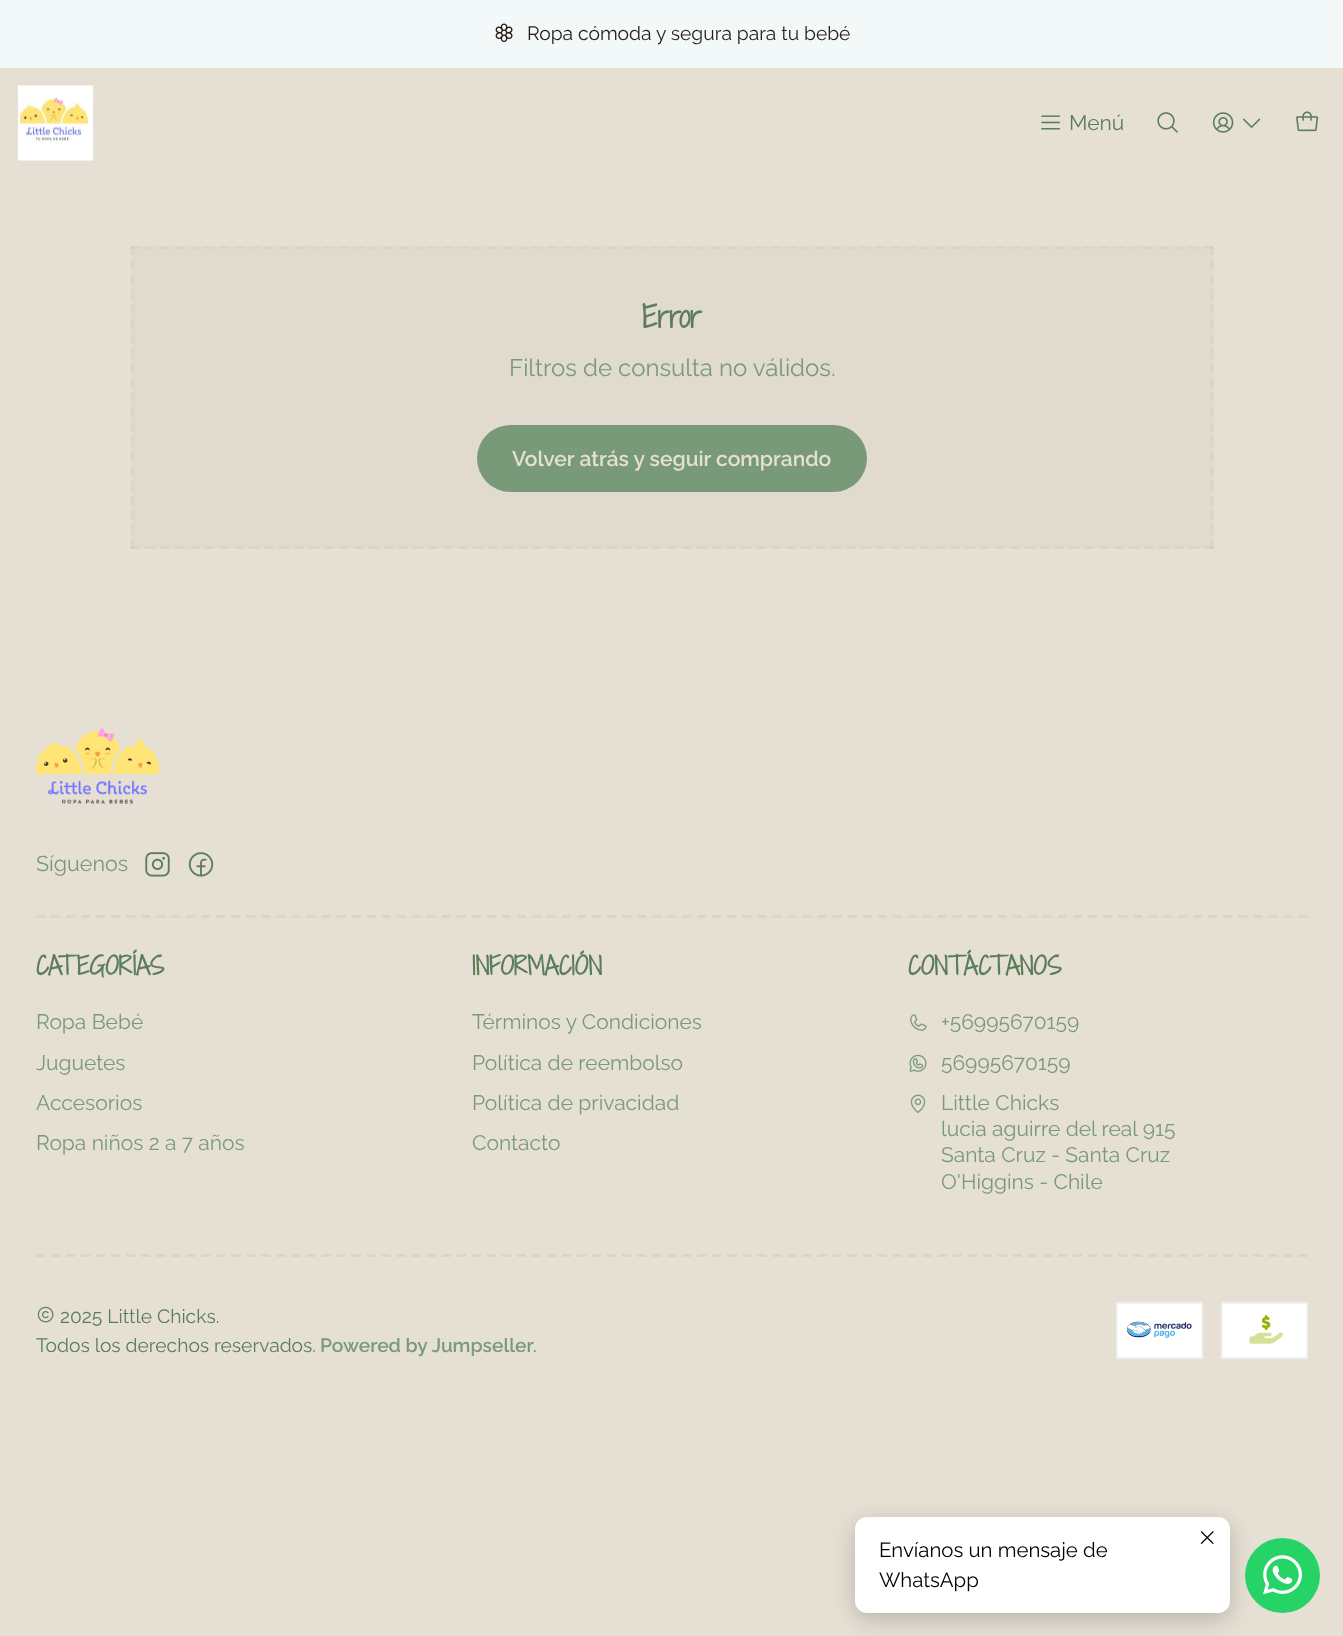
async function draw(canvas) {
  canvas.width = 1343
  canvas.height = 1636
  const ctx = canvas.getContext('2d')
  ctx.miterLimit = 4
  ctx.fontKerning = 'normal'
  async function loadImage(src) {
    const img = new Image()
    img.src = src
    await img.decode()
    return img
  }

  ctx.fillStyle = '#e6e0d4'
  ctx.fillRect(0, 0, 1343, 1636)
  ctx.fillStyle = '#f3f8f9'
  ctx.fillRect(0, 0, 1343, 68)
  ctx.drawImage(await loadImage('image0.png'), 495, 23, 18, 19)
  ctx.font = '19.25px Raleway'
  ctx.fillStyle = '#261c15'
  ctx.fillText('Ropa cómoda y segura para tu bebé', 527, 40)
  ctx.drawImage(await loadImage('image1.png'), 18, 85, 75, 76)
  ctx.drawImage(await loadImage('image2.png'), 1041, 115, 19, 15)
  ctx.font = '21px Raleway'
  ctx.fillStyle = '#5a7d5a'
  ctx.fillText('Menú', 1069, 130)
  ctx.drawImage(await loadImage('image3.png'), 1157, 112, 21, 21)
  ctx.drawImage(await loadImage('image4.png'), 1212, 112, 22, 21)
  ctx.drawImage(await loadImage('image5.png'), 1243, 118, 18, 10)
  ctx.drawImage(await loadImage('image6.png'), 1296, 111, 23, 21)
  ctx.fillStyle = '#e0dbce'
  ctx.fillRect(131, 246, 1083, 303)
  ctx.beginPath()
  ctx.moveTo(130.5, 247.5)
  ctx.lineTo(1213.5, 247.5)
  ctx.strokeStyle = '#5a7d5a0d'
  ctx.lineWidth = 3
  ctx.setLineDash([9, 5.91])
  ctx.stroke()
  ctx.beginPath()
  ctx.moveTo(1212, 246)
  ctx.lineTo(1212, 549)
  ctx.setLineDash([9, 5.7])
  ctx.stroke()
  ctx.beginPath()
  ctx.moveTo(130.5, 547.5)
  ctx.lineTo(1213.5, 547.5)
  ctx.setLineDash([9, 5.91])
  ctx.stroke()
  ctx.beginPath()
  ctx.moveTo(132, 246)
  ctx.lineTo(132, 549)
  ctx.setLineDash([9, 5.7])
  ctx.stroke()
  ctx.font = 'bold 29px Shadows Into Light Two'
  ctx.fillStyle = '#5a7d5a'
  ctx.fillText('Error', 642, 328)
  ctx.font = '24px Raleway'
  ctx.fillStyle = '#799a79'
  ctx.fillText('Filtros de consulta no válidos.', 509, 376)
  ctx.beginPath()
  ctx.roundRect(477, 425, 390, 67, 33.5)
  ctx.fill()
  ctx.font = '600 21px Raleway'
  ctx.fillStyle = '#e6e0d4'
  ctx.fillText('Volver atrás y seguir comprando', 512, 466)
  ctx.drawImage(await loadImage('image7.png'), 36, 728, 123, 76)
  ctx.font = '21.5px Raleway'
  ctx.fillStyle = '#799a79'
  ctx.fillText('Síguenos', 36, 871)
  ctx.drawImage(await loadImage('image8.png'), 145, 852, 25, 25)
  ctx.drawImage(await loadImage('image9.png'), 188, 852, 26, 25)
  ctx.beginPath()
  ctx.moveTo(36, 916.5)
  ctx.lineTo(1308, 916.5)
  ctx.strokeStyle = '#d8d6c8'
  ctx.setLineDash([9, 6.03])
  ctx.stroke()
  ctx.font = 'bold 24px Shadows Into Light Two'
  ctx.fillStyle = '#5a7d5a'
  ctx.fillText('CATEGORÍAS', 36, 975)
  ctx.font = '21px Raleway'
  ctx.fillStyle = '#799a79'
  ctx.fillText('Ropa Bebé', 36, 1029)
  ctx.fillText('Juguetes', 36, 1070)
  ctx.fillText('Accesorios', 36, 1110)
  ctx.fillText('Ropa niños 2 a 7 años', 36, 1150)
  ctx.font = 'bold 24px Shadows Into Light Two'
  ctx.fillStyle = '#5a7d5a'
  ctx.fillText('INFORMACIÓN', 472, 975)
  ctx.font = '21px Raleway'
  ctx.fillStyle = '#799a79'
  ctx.fillText('Términos y Condiciones', 472, 1029)
  ctx.fillText('Política de reembolso', 472, 1070)
  ctx.fillText('Política de privacidad', 472, 1110)
  ctx.fillText('Contacto', 472, 1150)
  ctx.font = 'bold 24px Shadows Into Light Two'
  ctx.fillStyle = '#5a7d5a'
  ctx.fillText('CONTÁCTANOS', 908, 975)
  ctx.drawImage(await loadImage('image10.png'), 910, 1014, 17, 17)
  ctx.font = '21px Raleway'
  ctx.fillStyle = '#799a79'
  ctx.fillText('+56995670159', 941, 1029)
  ctx.drawImage(await loadImage('image11.png'), 909, 1054, 18, 18)
  ctx.fillText('56995670159', 941, 1070)
  ctx.drawImage(await loadImage('image12.png'), 910, 1094, 16, 19)
  ctx.fillText('Little Chicks', 941, 1110)
  ctx.fillText('lucia aguirre del real 915', 941, 1136)
  ctx.fillText('Santa Cruz - Santa Cruz', 941, 1162)
  ctx.fillText('O\'Higgins - Chile', 941, 1189)
  ctx.beginPath()
  ctx.moveTo(36, 1255.5)
  ctx.lineTo(1308, 1255.5)
  ctx.stroke()
  ctx.drawImage(await loadImage('image13.png'), 37, 1306, 17, 17)
  ctx.font = '19.25px Raleway'
  ctx.fillStyle = '#5a7d5a'
  ctx.fillText('2025 Little Chicks.', 60, 1323)
  ctx.fillText('Todos los derechos reservados.', 36, 1352)
  ctx.font = '600 19.25px Raleway'
  ctx.fillStyle = '#799a79'
  ctx.fillText('Powered by Jumpseller', 320, 1352)
  ctx.font = '19.25px Raleway'
  ctx.fillStyle = '#5a7d5a'
  ctx.fillText('.', 533, 1352)
  ctx.fillStyle = '#fff'
  ctx.beginPath()
  ctx.rect(1117, 1303, 85, 55)
  ctx.fill()
  ctx.strokeStyle = '#eff2ef'
  ctx.lineWidth = 2
  ctx.setLineDash([])
  ctx.stroke()
  ctx.drawImage(await loadImage('image14.png'), 1126, 1321, 66, 17)
  ctx.beginPath()
  ctx.rect(1222, 1303, 85, 55)
  ctx.fill()
  ctx.stroke()
  ctx.drawImage(await loadImage('image15.png'), 1249, 1315, 34, 29)
  ctx.fillStyle = '#00000033'
  ctx.filter = 'blur(11px)'
  ctx.beginPath()
  ctx.roundRect(855, 1523, 375, 96, 12)
  ctx.fill()
  ctx.filter = 'none'
  ctx.fillStyle = '#fff'
  ctx.beginPath()
  ctx.roundRect(855, 1517, 375, 96, 12)
  ctx.fill()
  ctx.drawImage(await loadImage('image16.png'), 1200, 1531, 14, 13)
  ctx.font = '20.4px Raleway'
  ctx.fillStyle = '#000'
  ctx.fillText('Envíanos un mensaje de', 879, 1557)
  ctx.fillText('WhatsApp', 879, 1587)
  ctx.fillStyle = '#25d366'
  ctx.beginPath()
  ctx.arc(1282.5, 1575.5, 37.5, 0, 2 * Math.PI)
  ctx.fill()
  ctx.drawImage(await loadImage('image17.png'), 1263, 1555, 39, 40)
}

draw(document.querySelector('canvas'))
